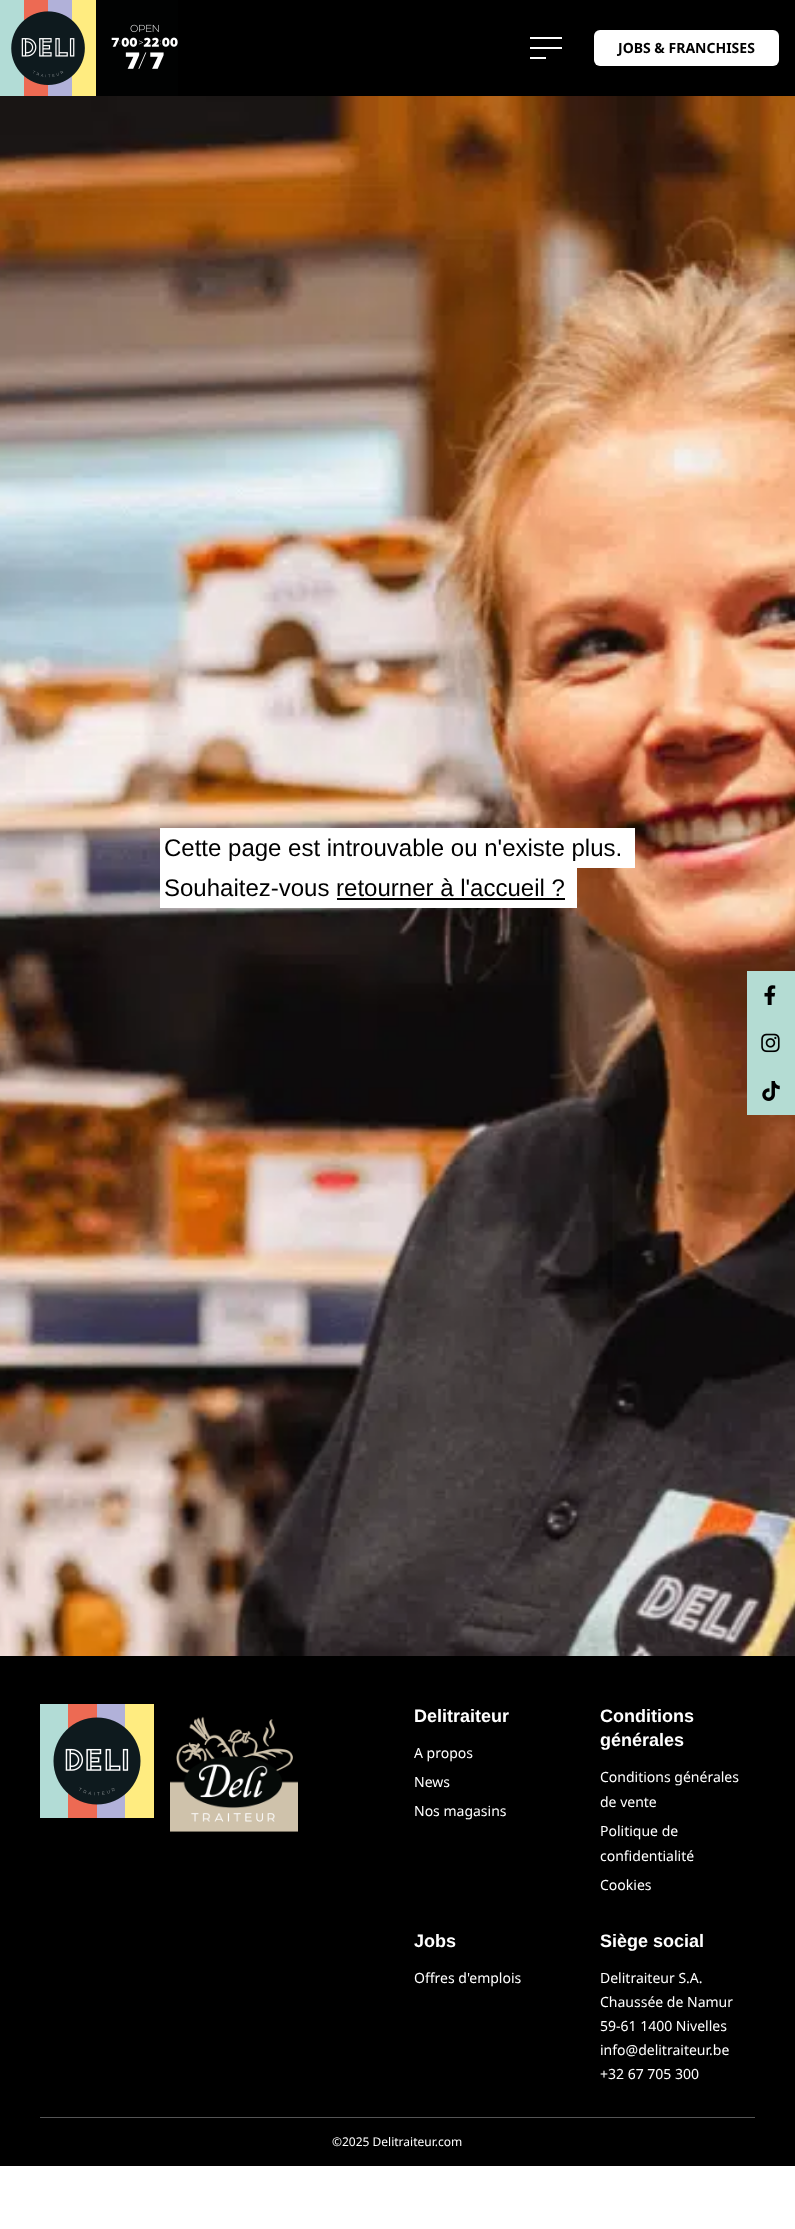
async function draw(canvas) {
  canvas.width = 795
  canvas.height = 2229
  const ctx = canvas.getContext('2d')
  ctx.miterLimit = 4
  ctx.fontKerning = 'normal'
  async function loadImage(src) {
    const img = new Image()
    img.src = src
    await img.decode()
    return img
  }

  ctx.fillStyle = '#fff'
  ctx.fillRect(0, 0, 795, 2229)
  ctx.fillStyle = '#000'
  ctx.fillRect(178, 0, 617, 96)
  ctx.drawImage(await loadImage('image0.png'), 0, 0, 178, 96)
  ctx.fillStyle = '#fff'
  ctx.fillRect(530, 37, 32, 2)
  ctx.fillRect(530, 47, 32, 2)
  ctx.fillRect(530, 57, 16, 2)
  ctx.beginPath()
  ctx.roundRect(594, 30, 185, 36, 6)
  ctx.fill()
  ctx.font = 'bold 14px Noto Sans'
  ctx.fillStyle = '#000'
  ctx.fillText('JOBS & FRANCHISES', 618, 53)
  ctx.drawImage(await loadImage('image1.png'), 0, 96, 795, 1560)
  ctx.fillStyle = '#fff'
  ctx.fillRect(160, 828, 475, 40)
  ctx.font = '24px Liberation Sans'
  ctx.fillStyle = '#000'
  ctx.fillText('Cette page est introuvable ou n\'existe plus.', 164, 856)
  ctx.fillStyle = '#fff'
  ctx.fillRect(160, 868, 417, 40)
  ctx.fillStyle = '#000'
  ctx.fillText('Souhaitez-vous retourner à l\'accueil ?', 164, 896)
  ctx.fillRect(337, 898, 228, 2)
  ctx.fillRect(0, 1656, 795, 510)
  ctx.fillStyle = '#b4dcd3'
  ctx.fillRect(747, 971, 48, 144)
  ctx.drawImage(await loadImage('image2.png'), 764, 985, 12, 20)
  ctx.drawImage(await loadImage('image3.png'), 761, 1033, 19, 20)
  ctx.drawImage(await loadImage('image4.png'), 762, 1081, 18, 20)
  ctx.fillStyle = '#545455'
  ctx.fillRect(40, 2117, 715, 1)
  ctx.drawImage(await loadImage('image5.png'), 40, 1704, 114, 114)
  ctx.drawImage(await loadImage('image6.png'), 170, 1716, 128, 116)
  ctx.font = 'bold 18px Liberation Sans'
  ctx.fillStyle = '#fff'
  ctx.fillText('Delitraiteur', 414, 1722)
  ctx.font = '14px Noto Sans'
  ctx.fillText('A propos', 414, 1758)
  ctx.fillText('News', 414, 1787)
  ctx.fillText('Nos magasins', 414, 1816)
  ctx.font = 'bold 18px Liberation Sans'
  ctx.fillText('Conditions', 600, 1722)
  ctx.fillText('générales', 600, 1746)
  ctx.font = '14px Noto Sans'
  ctx.fillText('Conditions générales', 600, 1782)
  ctx.fillText('de vente', 600, 1807)
  ctx.fillText('Politique de', 600, 1836)
  ctx.fillText('confidentialité', 600, 1861)
  ctx.fillText('Cookies', 600, 1890)
  ctx.font = 'bold 18px Liberation Sans'
  ctx.fillText('Jobs', 414, 1947)
  ctx.font = '14px Noto Sans'
  ctx.fillText('Offres d\'emplois', 414, 1983)
  ctx.font = 'bold 18px Liberation Sans'
  ctx.fillText('Siège social', 600, 1947)
  ctx.font = '14px Noto Sans'
  ctx.fillText('Delitraiteur S.A.', 600, 1983)
  ctx.fillText('Chaussée de Namur', 600, 2007)
  ctx.fillText('59-61 1400 Nivelles', 600, 2031)
  ctx.fillText('info@delitraiteur.be', 600, 2055)
  ctx.fillText('+32 67 705 300', 600, 2079)
  ctx.font = '12px Noto Sans'
  ctx.fillText('©2025 Delitraiteur.com', 332, 2146)
}

draw(document.querySelector('canvas'))
